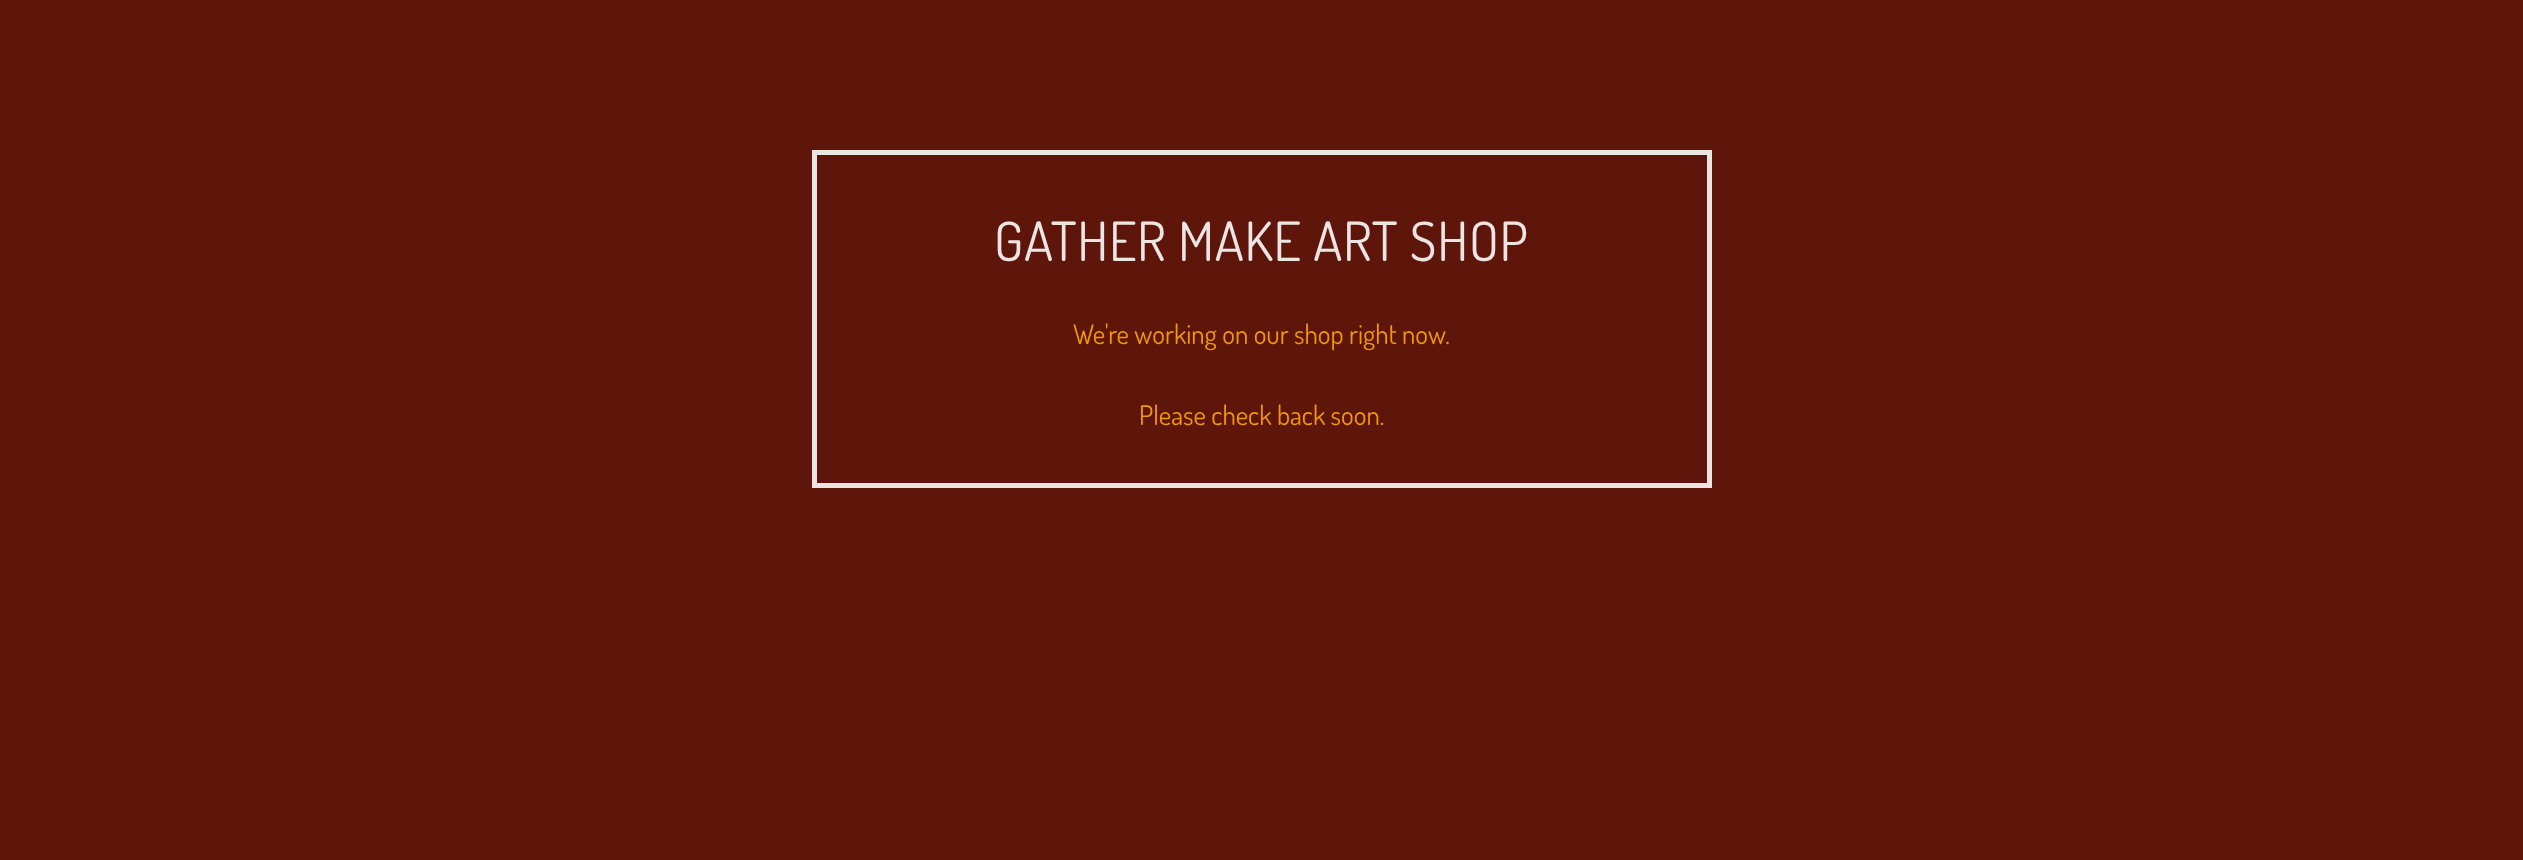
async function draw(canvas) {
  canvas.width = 2523
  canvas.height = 860
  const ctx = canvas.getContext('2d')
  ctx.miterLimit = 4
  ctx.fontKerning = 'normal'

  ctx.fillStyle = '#5e160b'
  ctx.fillRect(0, 0, 2523, 860)
  ctx.strokeStyle = '#ede4e4'
  ctx.lineWidth = 5
  ctx.strokeRect(814.5, 152.5, 895, 333)
  ctx.letterSpacing = '0.75px'
  ctx.font = '54px Dosis'
  ctx.fillStyle = '#ede4e4'
  ctx.fillText('GATHER MAKE ART SHOP', 994, 261)
  ctx.letterSpacing = '0px'
  ctx.font = '27px Dosis'
  ctx.fillStyle = '#f29909'
  ctx.fillText('We\'re working on our shop right now.', 1073, 344)
  ctx.fillText('Please check back soon.', 1139, 425)
}

draw(document.querySelector('canvas'))
